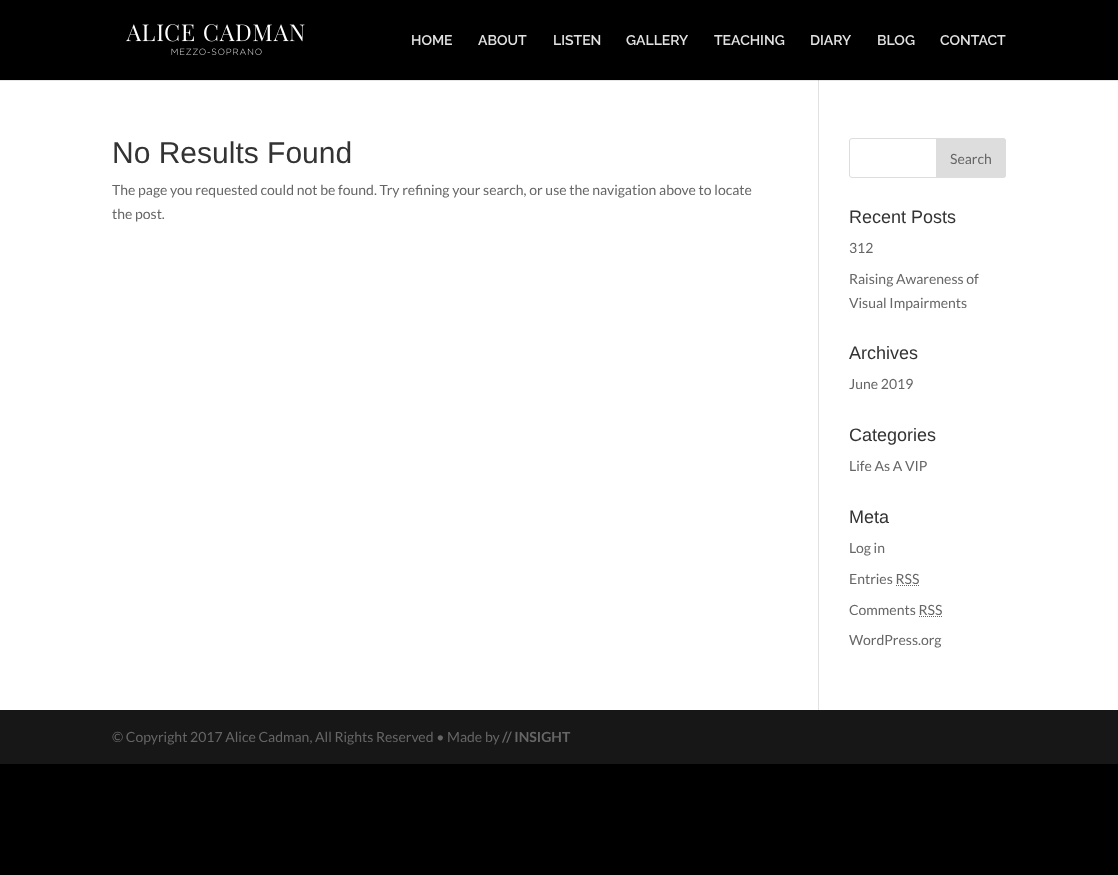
async function draw(canvas) {
  canvas.width = 1118
  canvas.height = 875
  const ctx = canvas.getContext('2d')
  ctx.miterLimit = 4
  ctx.fontKerning = 'normal'
  async function loadImage(src) {
    const img = new Image()
    img.src = src
    await img.decode()
    return img
  }

  ctx.fillStyle = '#000'
  ctx.fillRect(0, 0, 1118, 875)
  ctx.drawImage(await loadImage('image0.png'), 126, 24, 179, 31)
  ctx.font = '600 14px Raleway'
  ctx.fillStyle = '#e2e2e2'
  ctx.fillText('HOME', 411, 45)
  ctx.fillText('ABOUT', 478, 45)
  ctx.fillText('LISTEN', 553, 45)
  ctx.fillText('GALLERY', 626, 45)
  ctx.fillText('TEACHING', 714, 45)
  ctx.fillText('DIARY', 810, 45)
  ctx.fillText('BLOG', 877, 45)
  ctx.fillText('CONTACT', 940, 45)
  ctx.fillStyle = '#fff'
  ctx.fillRect(0, 81, 1118, 629)
  ctx.fillStyle = '#e6e6e6'
  ctx.fillRect(0, 80, 1118, 1)
  ctx.fillStyle = '#e2e2e2'
  ctx.fillRect(818, 80, 1, 630)
  ctx.fillStyle = '#cbcbcb'
  ctx.fillRect(818, 80, 1, 1)
  ctx.font = '30px Liberation Sans'
  ctx.fillStyle = '#333'
  ctx.fillText('No Results Found', 112, 163)
  ctx.font = '14px Lato'
  ctx.fillStyle = '#666'
  ctx.fillText('The page you requested could not be found. Try refining your search, or use the navigation above to locate', 112, 195)
  ctx.fillText('the post.', 112, 219)
  ctx.beginPath()
  ctx.roundRect(849.5, 138.5, 156, 39, 2.5)
  ctx.strokeStyle = '#ddd'
  ctx.stroke()
  ctx.fillStyle = '#ddd'
  ctx.beginPath()
  ctx.roundRect(936.5, 138.5, 69, 39, [0, 2.5, 2.5, 0])
  ctx.fill()
  ctx.stroke()
  ctx.fillStyle = '#666'
  ctx.fillText('Search', 950, 164)
  ctx.font = '18px Liberation Sans'
  ctx.fillStyle = '#333'
  ctx.fillText('Recent Posts', 849, 223)
  ctx.font = '14px Lato'
  ctx.fillStyle = '#666'
  ctx.fillText('312', 849, 253)
  ctx.fillText('Raising Awareness of', 849, 284)
  ctx.fillText('Visual Impairments', 849, 308)
  ctx.font = '18px Liberation Sans'
  ctx.fillStyle = '#333'
  ctx.fillText('Archives', 849, 359)
  ctx.font = '14px Lato'
  ctx.fillStyle = '#666'
  ctx.fillText('June 2019', 849, 389)
  ctx.font = '18px Liberation Sans'
  ctx.fillStyle = '#333'
  ctx.fillText('Categories', 849, 441)
  ctx.font = '14px Lato'
  ctx.fillStyle = '#666'
  ctx.fillText('Life As A VIP', 849, 471)
  ctx.font = '18px Liberation Sans'
  ctx.fillStyle = '#333'
  ctx.fillText('Meta', 849, 523)
  ctx.font = '14px Lato'
  ctx.fillStyle = '#666'
  ctx.fillText('Log in', 849, 553)
  ctx.fillText('Entries RSS', 849, 584)
  ctx.beginPath()
  ctx.moveTo(896, 585.5)
  ctx.lineTo(920, 585.5)
  ctx.strokeStyle = '#666'
  ctx.setLineDash([1, 1])
  ctx.stroke()
  ctx.fillText('Comments RSS', 849, 615)
  ctx.beginPath()
  ctx.moveTo(919, 616.5)
  ctx.lineTo(943, 616.5)
  ctx.stroke()
  ctx.fillText('WordPress.org', 849, 645)
  ctx.fillStyle = '#171717'
  ctx.fillRect(0, 710, 1118, 54)
  ctx.fillStyle = '#666'
  ctx.fillText('© Copyright 2017 Alice Cadman, All Rights Reserved • Made by', 112, 742)
  ctx.font = 'bold 14px Lato'
  ctx.fillText('// INSIGHT', 502, 742)
}

draw(document.querySelector('canvas'))
